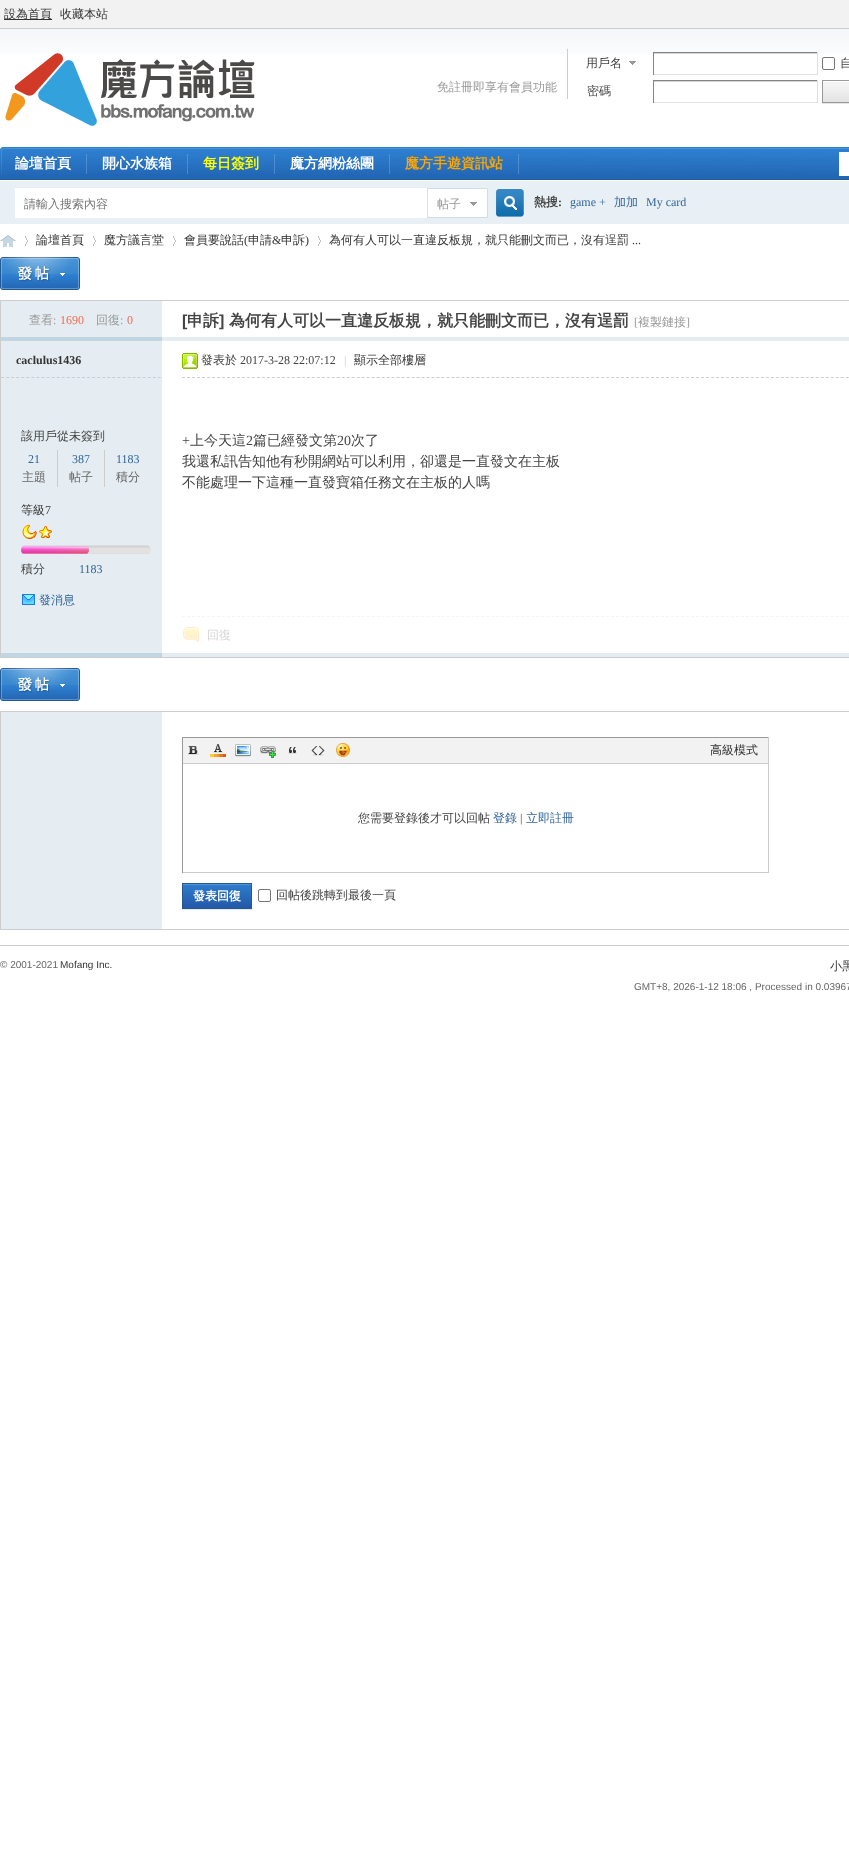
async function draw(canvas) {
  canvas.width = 849
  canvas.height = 1864
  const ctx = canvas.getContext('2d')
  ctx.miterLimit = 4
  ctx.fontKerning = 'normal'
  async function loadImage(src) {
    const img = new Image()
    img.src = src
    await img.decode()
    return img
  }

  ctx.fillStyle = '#fff'
  ctx.fillRect(0, 0, 849, 1864)
  ctx.drawImage(await loadImage('image0.png'), 0, 29, 849, 25)
  ctx.fillStyle = '#f2f2f2'
  ctx.fillRect(0, 0, 849, 28)
  ctx.fillStyle = '#cdcdcd'
  ctx.fillRect(0, 28, 849, 1)
  ctx.fillStyle = '#333'
  ctx.fillRect(4, 19, 48, 1)
  ctx.font = '500 12px WenQuanYi Zen Hei'
  ctx.fillText('設為首頁', 4, 18)
  ctx.fillText('收藏本站', 60, 18)
  ctx.drawImage(await loadImage('image1.png'), 5, 53, 250, 73)
  ctx.fillStyle = '#cdcdcd'
  ctx.fillRect(567, 49, 1, 50)
  ctx.fillStyle = '#999'
  ctx.fillText('免註冊即享有會員功能', 437, 91)
  ctx.drawImage(await loadImage('image2.png'), 629, 61, 7, 4)
  ctx.fillStyle = '#444'
  ctx.fillText('用戶名', 586, 67)
  ctx.fillStyle = '#d4d4d4'
  ctx.fillRect(653, 53, 165, 1)
  ctx.fillStyle = '#848484'
  ctx.fillRect(653, 52, 165, 1)
  ctx.fillStyle = '#e0e0e0'
  ctx.fillRect(817, 52, 1, 23)
  ctx.fillRect(653, 74, 165, 1)
  ctx.fillStyle = '#848484'
  ctx.fillRect(653, 52, 1, 23)
  ctx.beginPath()
  ctx.roundRect(822.5, 57.5, 12, 12, 1.5)
  ctx.strokeStyle = '#767676'
  ctx.stroke()
  ctx.fillStyle = '#444'
  ctx.fillText('自', 840, 67)
  ctx.fillText('密碼', 587, 95)
  ctx.fillStyle = '#d4d4d4'
  ctx.fillRect(653, 81, 165, 1)
  ctx.fillStyle = '#848484'
  ctx.fillRect(653, 80, 165, 1)
  ctx.fillStyle = '#e0e0e0'
  ctx.fillRect(817, 80, 1, 23)
  ctx.fillRect(653, 102, 165, 1)
  ctx.fillStyle = '#848484'
  ctx.fillRect(653, 80, 1, 23)
  ctx.fillStyle = '#e5e5e5'
  ctx.fillRect(822, 103, 27, 1)
  ctx.drawImage(await loadImage('image3.png'), 823, 81, 26, 21)
  ctx.strokeStyle = '#999'
  ctx.strokeRect(822.5, 80.5, 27, 22)
  ctx.drawImage(await loadImage('image4.png'), 0, 147, 849, 33)
  ctx.drawImage(await loadImage('image5.png'), 86, 154, 1, 20)
  ctx.font = 'bold 14px WenQuanYi Zen Hei'
  ctx.fillStyle = '#fff'
  ctx.fillText('論壇首頁', 15, 168)
  ctx.drawImage(await loadImage('image5.png'), 187, 154, 1, 20)
  ctx.fillText('開心水族箱', 102, 168)
  ctx.drawImage(await loadImage('image5.png'), 274, 154, 1, 20)
  ctx.fillStyle = '#ff0'
  ctx.fillText('每日簽到', 203, 168)
  ctx.drawImage(await loadImage('image5.png'), 389, 154, 1, 20)
  ctx.fillStyle = '#fff'
  ctx.fillText('魔方網粉絲團', 290, 168)
  ctx.drawImage(await loadImage('image5.png'), 518, 154, 1, 20)
  ctx.fillStyle = '#ffa500'
  ctx.fillText('魔方手遊資訊站', 405, 168)
  ctx.fillStyle = '#fff'
  ctx.fillRect(839, 152, 10, 24)
  ctx.fillStyle = '#e8eff5'
  ctx.fillRect(0, 181, 849, 43)
  ctx.fillStyle = '#fff'
  ctx.fillRect(15, 188, 412, 30)
  ctx.drawImage(await loadImage('image6.png'), 496, 189, 28, 28)
  ctx.font = 'bold 12px WenQuanYi Zen Hei'
  ctx.fillStyle = '#444'
  ctx.fillText('熱搜', 534, 206)
  ctx.font = 'bold 12px Liberation Serif'
  ctx.fillText(':', 558, 206)
  ctx.font = '12px Liberation Serif'
  ctx.fillStyle = '#369'
  ctx.fillText('game +', 570, 206)
  ctx.font = '500 12px WenQuanYi Zen Hei'
  ctx.fillText('加加', 614, 206)
  ctx.font = '12px Liberation Serif'
  ctx.fillText('My card', 646, 206)
  ctx.font = '500 12px WenQuanYi Zen Hei'
  ctx.fillStyle = '#757575'
  ctx.fillText('請輸入搜索內容', 24, 208)
  ctx.drawImage(await loadImage('image7.png'), 427, 188, 61, 30)
  ctx.fillStyle = '#999'
  ctx.fillText('帖子', 437, 208)
  ctx.drawImage(await loadImage('image8.png'), 0, 235, 16, 12)
  ctx.drawImage(await loadImage('image9.png'), 25, 236, 3, 10)
  ctx.fillStyle = '#333'
  ctx.fillText('論壇首頁', 36, 244)
  ctx.drawImage(await loadImage('image9.png'), 93, 236, 3, 10)
  ctx.fillText('魔方議言堂', 104, 244)
  ctx.drawImage(await loadImage('image9.png'), 173, 236, 3, 10)
  ctx.fillText('會員要說話', 184, 244)
  ctx.font = '12px Liberation Serif'
  ctx.fillText('(', 244, 244)
  ctx.font = '500 12px WenQuanYi Zen Hei'
  ctx.fillText('申請', 248, 244)
  ctx.font = '12px Liberation Serif'
  ctx.fillText('&', 272, 244)
  ctx.font = '500 12px WenQuanYi Zen Hei'
  ctx.fillText('申訴', 281, 244)
  ctx.font = '12px Liberation Serif'
  ctx.fillText(')', 305, 244)
  ctx.drawImage(await loadImage('image9.png'), 318, 236, 3, 10)
  ctx.font = '500 12px WenQuanYi Zen Hei'
  ctx.fillText('為何有人可以一直違反板規，就只能刪文而已，沒有逞罰', 329, 244)
  ctx.font = '12px Liberation Serif'
  ctx.fillText('...', 632, 244)
  ctx.drawImage(await loadImage('image10.png'), 0, 257, 80, 33)
  ctx.strokeStyle = '#cdcdcd'
  ctx.strokeRect(0.5, 300.5, 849, 357)
  ctx.fillStyle = '#e5edf2'
  ctx.fillRect(1, 301, 161, 36)
  ctx.font = '500 12px WenQuanYi Zen Hei'
  ctx.fillStyle = '#999'
  ctx.fillText('查看', 29, 324)
  ctx.font = '12px Liberation Serif'
  ctx.fillText(':', 53, 324)
  ctx.fillStyle = '#f26c4f'
  ctx.fillText('1690', 60, 324)
  ctx.font = '500 12px WenQuanYi Zen Hei'
  ctx.fillStyle = '#999'
  ctx.fillText('回復', 96, 324)
  ctx.font = '12px Liberation Serif'
  ctx.fillText(':', 120, 324)
  ctx.fillStyle = '#f26c4f'
  ctx.fillText('0', 127, 324)
  ctx.font = 'bold 16px Liberation Sans'
  ctx.fillStyle = '#444'
  ctx.fillText('[', 182, 326)
  ctx.font = 'bold 16px WenQuanYi Zen Hei'
  ctx.fillText('申訴', 187, 326)
  ctx.font = 'bold 16px Liberation Sans'
  ctx.fillText(']', 219, 326)
  ctx.font = 'bold 16px WenQuanYi Zen Hei'
  ctx.fillText('為何有人可以一直違反板規，就只能刪文而已，沒有逞罰', 229, 326)
  ctx.font = '12px Liberation Serif'
  ctx.fillStyle = '#999'
  ctx.fillText('[', 634, 326)
  ctx.font = '500 12px WenQuanYi Zen Hei'
  ctx.fillText('複製鏈接', 638, 326)
  ctx.font = '12px Liberation Serif'
  ctx.fillText(']', 686, 326)
  ctx.fillStyle = '#c2d5e3'
  ctx.fillRect(1, 337, 161, 4)
  ctx.fillStyle = '#e5edf2'
  ctx.fillRect(162, 337, 687, 4)
  ctx.fillRect(1, 341, 161, 312)
  ctx.beginPath()
  ctx.moveTo(1, 377.5)
  ctx.lineTo(161, 377.5)
  ctx.setLineDash([3, 2.06])
  ctx.stroke()
  ctx.font = 'bold 12px Liberation Serif'
  ctx.fillStyle = '#333'
  ctx.fillText('caclulus1436', 16, 364)
  ctx.font = '500 12px WenQuanYi Zen Hei'
  ctx.fillStyle = '#444'
  ctx.fillText('該用戶從未簽到', 21, 440)
  ctx.fillStyle = '#ccc'
  ctx.fillRect(57, 450, 1, 37)
  ctx.font = '12px Liberation Serif'
  ctx.fillStyle = '#369'
  ctx.fillText('21', 28, 463)
  ctx.font = '500 12px WenQuanYi Zen Hei'
  ctx.fillStyle = '#666'
  ctx.fillText('主題', 22, 481)
  ctx.fillStyle = '#ccc'
  ctx.fillRect(104, 450, 1, 37)
  ctx.font = '12px Liberation Serif'
  ctx.fillStyle = '#369'
  ctx.fillText('387', 72, 463)
  ctx.font = '500 12px WenQuanYi Zen Hei'
  ctx.fillStyle = '#666'
  ctx.fillText('帖子', 69, 481)
  ctx.font = '12px Liberation Serif'
  ctx.fillStyle = '#369'
  ctx.fillText('1183', 116, 463)
  ctx.font = '500 12px WenQuanYi Zen Hei'
  ctx.fillStyle = '#666'
  ctx.fillText('積分', 116, 481)
  ctx.fillStyle = '#333'
  ctx.fillText('等級', 21, 514)
  ctx.font = '12px Liberation Serif'
  ctx.fillText('7', 45, 514)
  ctx.drawImage(await loadImage('image11.png'), 22, 524, 15, 15)
  ctx.drawImage(await loadImage('image12.png'), 39, 526, 13, 12)
  ctx.drawImage(await loadImage('image13.png'), 21, 545, 130, 9)
  ctx.drawImage(await loadImage('image14.png'), 21, 546, 68, 8)
  ctx.font = '500 12px WenQuanYi Zen Hei'
  ctx.fillStyle = '#444'
  ctx.fillText('積分', 21, 573)
  ctx.font = '12px Liberation Serif'
  ctx.fillStyle = '#369'
  ctx.fillText('1183', 79, 573)
  ctx.drawImage(await loadImage('image15.png'), 22, 594, 13, 11)
  ctx.font = '500 12px WenQuanYi Zen Hei'
  ctx.fillText('發消息', 39, 604)
  ctx.beginPath()
  ctx.moveTo(182, 377.5)
  ctx.lineTo(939, 377.5)
  ctx.setLineDash([3, 1.99])
  ctx.stroke()
  ctx.drawImage(await loadImage('image16.png'), 182, 353, 16, 16)
  ctx.fillStyle = '#444'
  ctx.fillText('發表於', 201, 364)
  ctx.font = '12px Liberation Serif'
  ctx.fillText('2017-3-28 22:07:12', 240, 364)
  ctx.fillStyle = '#ccc'
  ctx.fillText('|', 344, 364)
  ctx.font = '500 12px WenQuanYi Zen Hei'
  ctx.fillStyle = '#333'
  ctx.fillText('顯示全部樓層', 354, 364)
  ctx.font = '14px Liberation Serif'
  ctx.fillStyle = '#444'
  ctx.fillText('+', 182, 445)
  ctx.font = '500 14px WenQuanYi Zen Hei'
  ctx.fillText('上今天這', 190, 445)
  ctx.font = '14px Liberation Serif'
  ctx.fillText('2', 246, 445)
  ctx.font = '500 14px WenQuanYi Zen Hei'
  ctx.fillText('篇已經發文第', 253, 445)
  ctx.font = '14px Liberation Serif'
  ctx.fillText('20', 337, 445)
  ctx.font = '500 14px WenQuanYi Zen Hei'
  ctx.fillText('次了', 351, 445)
  ctx.fillText('我還私訊告知他有秒開網站可以利用，卻還是一直發文在主板', 182, 466)
  ctx.fillText('不能處理一下這種一直發寶箱任務文在主板的人嗎', 182, 487)
  ctx.beginPath()
  ctx.moveTo(182, 616.5)
  ctx.lineTo(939, 616.5)
  ctx.strokeStyle = '#f5f5f5'
  ctx.stroke()
  ctx.drawImage(await loadImage('image17.png'), 183, 627, 16, 15)
  ctx.font = '500 12px WenQuanYi Zen Hei'
  ctx.fillStyle = '#d6d6d6'
  ctx.fillText('回復', 207, 639)
  ctx.fillStyle = '#c2d5e3'
  ctx.fillRect(161, 653, 1, 5)
  ctx.fillRect(1, 653, 161, 4)
  ctx.fillStyle = '#e5edf2'
  ctx.fillRect(162, 653, 687, 4)
  ctx.drawImage(await loadImage('image10.png'), 0, 668, 80, 33)
  ctx.strokeStyle = '#cdcdcd'
  ctx.setLineDash([])
  ctx.strokeRect(0.5, 711.5, 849, 218)
  ctx.fillStyle = '#c2d5e3'
  ctx.fillRect(161, 929, 1, 1)
  ctx.fillStyle = '#e5edf2'
  ctx.fillRect(1, 712, 161, 217)
  ctx.fillStyle = '#999'
  ctx.fillRect(182, 737, 587, 1)
  ctx.fillStyle = '#ccc'
  ctx.fillRect(768, 737, 1, 136)
  ctx.fillRect(182, 872, 587, 1)
  ctx.fillStyle = '#999'
  ctx.fillRect(182, 737, 1, 136)
  ctx.fillStyle = '#f2f2f2'
  ctx.fillRect(183, 738, 585, 25)
  ctx.fillStyle = '#cdcdcd'
  ctx.fillRect(183, 763, 585, 1)
  ctx.drawImage(await loadImage('image18.png'), 188, 746, 11, 9)
  ctx.drawImage(await loadImage('image19.png'), 210, 744, 16, 13)
  ctx.drawImage(await loadImage('image20.png'), 235, 744, 16, 13)
  ctx.drawImage(await loadImage('image21.png'), 260, 746, 17, 12)
  ctx.drawImage(await loadImage('image22.png'), 288, 747, 9, 7)
  ctx.drawImage(await loadImage('image23.png'), 311, 746, 14, 10)
  ctx.drawImage(await loadImage('image24.png'), 335, 743, 15, 14)
  ctx.fillStyle = '#333'
  ctx.fillText('高級模式', 710, 754)
  ctx.fillStyle = '#444'
  ctx.fillText('您需要登錄後才可以回帖', 358, 822)
  ctx.fillStyle = '#369'
  ctx.fillText('登錄', 493, 822)
  ctx.font = '12px Liberation Serif'
  ctx.fillStyle = '#444'
  ctx.fillText('|', 520, 822)
  ctx.font = '500 12px WenQuanYi Zen Hei'
  ctx.fillStyle = '#369'
  ctx.fillText('立即註冊', 526, 822)
  ctx.fillStyle = '#e5e5e5'
  ctx.fillRect(182, 909, 70, 1)
  ctx.drawImage(await loadImage('image25.png'), 183, 884, 68, 24)
  ctx.strokeStyle = '#235994'
  ctx.strokeRect(182.5, 883.5, 69, 25)
  ctx.font = 'bold 12px WenQuanYi Zen Hei'
  ctx.fillStyle = '#fff'
  ctx.fillText('發表回復', 193, 900)
  ctx.beginPath()
  ctx.roundRect(258.5, 889.5, 12, 12, 1.5)
  ctx.strokeStyle = '#767676'
  ctx.stroke()
  ctx.font = '500 12px WenQuanYi Zen Hei'
  ctx.fillStyle = '#444'
  ctx.fillText('回帖後跳轉到最後一頁', 276, 899)
  ctx.fillStyle = '#cdcdcd'
  ctx.fillRect(0, 945, 849, 1)
  ctx.font = '10px Liberation Sans'
  ctx.fillStyle = '#666'
  ctx.fillText('© 2001-2021', 0, 968)
  ctx.fillStyle = '#333'
  ctx.fillText('Mofang Inc.', 60, 968)
  ctx.font = '500 12px WenQuanYi Zen Hei'
  ctx.fillText('小黑', 830, 970)
  ctx.font = '10px Liberation Sans'
  ctx.fillStyle = '#666'
  ctx.fillText('GMT+8, 2026-1-12 18:06 , Processed in 0.03967', 634, 990)
}

draw(document.querySelector('canvas'))
